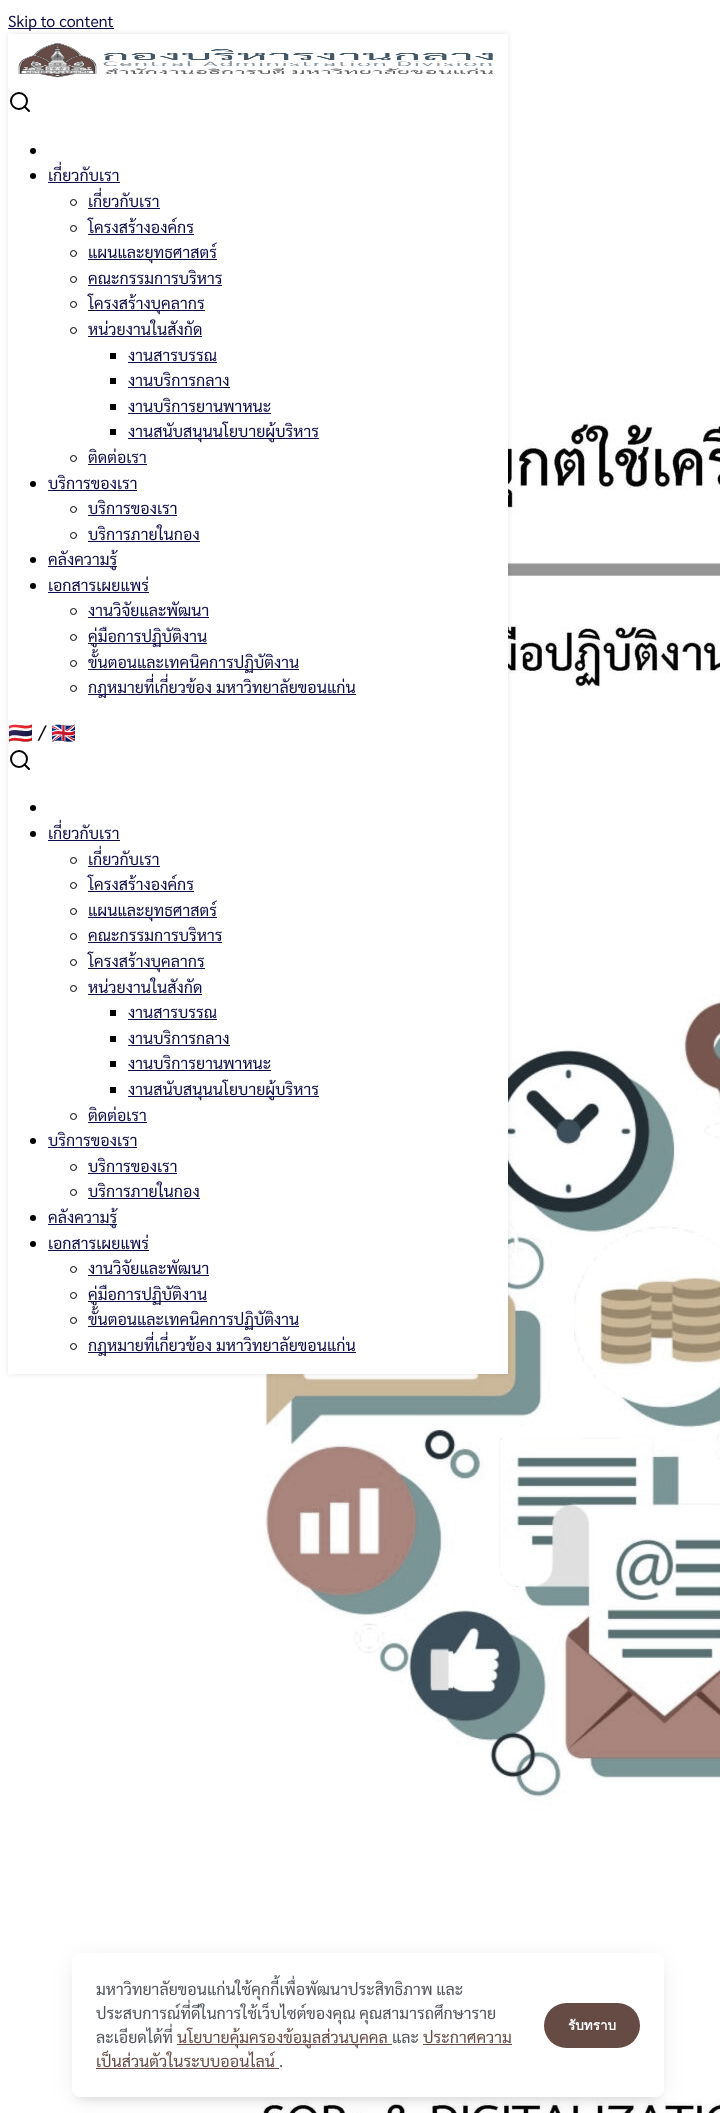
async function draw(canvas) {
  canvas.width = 720
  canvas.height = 2113
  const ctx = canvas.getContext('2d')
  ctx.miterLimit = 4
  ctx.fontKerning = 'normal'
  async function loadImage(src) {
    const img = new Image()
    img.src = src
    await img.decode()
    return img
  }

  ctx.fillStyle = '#fff'
  ctx.fillRect(0, 0, 720, 2113)
  ctx.fillStyle = '#0d0d48'
  ctx.fillRect(8, 28, 106, 1)
  ctx.font = '16px Sarabun'
  ctx.fillText('Skip to content', 8, 27)
  ctx.drawImage(await loadImage('image1.png'), 260, 418, 460, 1695)
  ctx.fillStyle = '#0000001a'
  ctx.filter = 'blur(2.5px)'
  ctx.beginPath()
  ctx.rect(8, 34, 500, 1340)
  ctx.fill()
  ctx.filter = 'none'
  ctx.fillStyle = '#fff'
  ctx.fillRect(8, 34, 500, 1340)
  ctx.drawImage(await loadImage('image0.png'), 18, 43, 475, 35)
  ctx.beginPath()
  ctx.arc(19, 101, 8, 0, 2 * Math.PI)
  ctx.strokeStyle = '#000'
  ctx.lineWidth = 2
  ctx.stroke()
  ctx.beginPath()
  ctx.moveTo(29, 111)
  ctx.lineTo(24.5, 106.5)
  ctx.lineCap = 'round'
  ctx.lineJoin = 'round'
  ctx.stroke()
  ctx.fillStyle = '#000'
  ctx.beginPath()
  ctx.arc(33, 151, 3, 0, 2 * Math.PI)
  ctx.fill()
  ctx.beginPath()
  ctx.arc(33, 176, 3, 0, 2 * Math.PI)
  ctx.fill()
  ctx.fillStyle = '#0d0d48'
  ctx.fillText('เกี่ยวกับเรา', 48, 181)
  ctx.fillRect(48, 182, 72, 1)
  ctx.beginPath()
  ctx.arc(73.5, 202.5, 3, 0, 2 * Math.PI)
  ctx.lineWidth = 1
  ctx.stroke()
  ctx.fillText('เกี่ยวกับเรา', 88, 207)
  ctx.fillRect(88, 208, 72, 1)
  ctx.beginPath()
  ctx.arc(73.5, 228.5, 3, 0, 2 * Math.PI)
  ctx.stroke()
  ctx.fillText('โครงสร้างองค์กร', 88, 233)
  ctx.fillRect(88, 234, 106, 1)
  ctx.beginPath()
  ctx.arc(73.5, 253.5, 3, 0, 2 * Math.PI)
  ctx.stroke()
  ctx.fillRect(88, 259, 129, 1)
  ctx.fillText('แผนและยุทธศาสตร์', 88, 258)
  ctx.beginPath()
  ctx.arc(73.5, 279.5, 3, 0, 2 * Math.PI)
  ctx.stroke()
  ctx.fillText('คณะกรรมการบริหาร', 88, 284)
  ctx.fillRect(88, 285, 134, 1)
  ctx.beginPath()
  ctx.arc(73.5, 304.5, 3, 0, 2 * Math.PI)
  ctx.stroke()
  ctx.fillRect(88, 310, 117, 1)
  ctx.fillText('โครงสร้างบุคลากร', 88, 309)
  ctx.beginPath()
  ctx.arc(73.5, 330.5, 3, 0, 2 * Math.PI)
  ctx.stroke()
  ctx.fillText('หน่วยงานในสังกัด', 88, 335)
  ctx.fillRect(88, 336, 114, 1)
  ctx.fillStyle = '#000'
  ctx.fillRect(110, 353, 6, 6)
  ctx.fillStyle = '#0d0d48'
  ctx.fillText('งานสารบรรณ', 128, 361)
  ctx.fillRect(128, 362, 89, 1)
  ctx.fillStyle = '#000'
  ctx.fillRect(110, 378, 6, 6)
  ctx.fillStyle = '#0d0d48'
  ctx.fillText('งานบริการกลาง', 128, 386)
  ctx.fillRect(128, 387, 102, 1)
  ctx.fillStyle = '#000'
  ctx.fillRect(110, 404, 6, 6)
  ctx.fillStyle = '#0d0d48'
  ctx.fillText('งานบริการยานพาหนะ', 128, 412)
  ctx.fillRect(128, 413, 143, 1)
  ctx.fillStyle = '#000'
  ctx.fillRect(110, 429, 6, 6)
  ctx.fillStyle = '#0d0d48'
  ctx.fillRect(128, 438, 191, 1)
  ctx.fillText('งานสนับสนุนนโยบายผู้บริหาร', 128, 437)
  ctx.beginPath()
  ctx.arc(73.5, 458.5, 3, 0, 2 * Math.PI)
  ctx.stroke()
  ctx.fillText('ติดต่อเรา', 88, 463)
  ctx.fillRect(88, 464, 59, 1)
  ctx.fillStyle = '#000'
  ctx.beginPath()
  ctx.arc(33, 484, 3, 0, 2 * Math.PI)
  ctx.fill()
  ctx.fillStyle = '#0d0d48'
  ctx.fillText('บริการของเรา', 48, 489)
  ctx.fillRect(48, 490, 89, 1)
  ctx.beginPath()
  ctx.arc(73.5, 509.5, 3, 0, 2 * Math.PI)
  ctx.stroke()
  ctx.fillText('บริการของเรา', 88, 514)
  ctx.fillRect(88, 515, 89, 1)
  ctx.beginPath()
  ctx.arc(73.5, 535.5, 3, 0, 2 * Math.PI)
  ctx.stroke()
  ctx.fillText('บริการภายในกอง', 88, 540)
  ctx.fillRect(88, 541, 112, 1)
  ctx.fillStyle = '#000'
  ctx.beginPath()
  ctx.arc(33, 560, 3, 0, 2 * Math.PI)
  ctx.fill()
  ctx.fillStyle = '#0d0d48'
  ctx.fillRect(48, 566, 69, 1)
  ctx.fillText('คลังความรู้', 48, 565)
  ctx.fillStyle = '#000'
  ctx.beginPath()
  ctx.arc(33, 586, 3, 0, 2 * Math.PI)
  ctx.fill()
  ctx.fillStyle = '#0d0d48'
  ctx.fillText('เอกสารเผยแพร่', 48, 591)
  ctx.fillRect(48, 592, 101, 1)
  ctx.beginPath()
  ctx.arc(73.5, 611.5, 3, 0, 2 * Math.PI)
  ctx.stroke()
  ctx.fillText('งานวิจัยและพัฒนา', 88, 616)
  ctx.fillRect(88, 617, 121, 1)
  ctx.beginPath()
  ctx.arc(73.5, 637.5, 3, 0, 2 * Math.PI)
  ctx.stroke()
  ctx.fillRect(88, 643, 119, 1)
  ctx.fillText('คู่มือการปฏิบัติงาน', 88, 642)
  ctx.beginPath()
  ctx.arc(73.5, 663.5, 3, 0, 2 * Math.PI)
  ctx.stroke()
  ctx.fillRect(88, 669, 211, 1)
  ctx.fillText('ขั้นตอนและเทคนิคการปฏิบัติงาน', 88, 668)
  ctx.beginPath()
  ctx.arc(73.5, 688.5, 3, 0, 2 * Math.PI)
  ctx.stroke()
  ctx.fillRect(88, 694, 268, 1)
  ctx.fillText('กฎหมายที่เกี่ยวข้อง มหาวิทยาลัยขอนแก่น', 88, 693)
  ctx.font = '20px Noto Color Emoji'
  ctx.fillStyle = '#000'
  ctx.fillText('🇹🇭', 8, 740)
  ctx.font = '20px Sarabun'
  ctx.fillText('/', 38, 740)
  ctx.font = '20px Noto Color Emoji'
  ctx.fillText('🇬🇧', 51, 740)
  ctx.beginPath()
  ctx.arc(19, 759, 8, 0, 2 * Math.PI)
  ctx.lineWidth = 2
  ctx.stroke()
  ctx.beginPath()
  ctx.moveTo(29, 769)
  ctx.lineTo(24.5, 764.5)
  ctx.stroke()
  ctx.beginPath()
  ctx.arc(33, 808, 3, 0, 2 * Math.PI)
  ctx.fill()
  ctx.beginPath()
  ctx.arc(33, 834, 3, 0, 2 * Math.PI)
  ctx.fill()
  ctx.font = '16px Sarabun'
  ctx.fillStyle = '#0d0d48'
  ctx.fillText('เกี่ยวกับเรา', 48, 839)
  ctx.fillRect(48, 840, 72, 1)
  ctx.beginPath()
  ctx.arc(73.5, 860.5, 3, 0, 2 * Math.PI)
  ctx.lineWidth = 1
  ctx.stroke()
  ctx.fillText('เกี่ยวกับเรา', 88, 865)
  ctx.fillRect(88, 866, 72, 1)
  ctx.beginPath()
  ctx.arc(73.5, 885.5, 3, 0, 2 * Math.PI)
  ctx.stroke()
  ctx.fillText('โครงสร้างองค์กร', 88, 890)
  ctx.fillRect(88, 891, 106, 1)
  ctx.beginPath()
  ctx.arc(73.5, 911.5, 3, 0, 2 * Math.PI)
  ctx.stroke()
  ctx.fillRect(88, 917, 129, 1)
  ctx.fillText('แผนและยุทธศาสตร์', 88, 916)
  ctx.beginPath()
  ctx.arc(73.5, 936.5, 3, 0, 2 * Math.PI)
  ctx.stroke()
  ctx.fillText('คณะกรรมการบริหาร', 88, 941)
  ctx.fillRect(88, 942, 134, 1)
  ctx.beginPath()
  ctx.arc(73.5, 962.5, 3, 0, 2 * Math.PI)
  ctx.stroke()
  ctx.fillRect(88, 968, 117, 1)
  ctx.fillText('โครงสร้างบุคลากร', 88, 967)
  ctx.beginPath()
  ctx.arc(73.5, 988.5, 3, 0, 2 * Math.PI)
  ctx.stroke()
  ctx.fillText('หน่วยงานในสังกัด', 88, 993)
  ctx.fillRect(88, 994, 114, 1)
  ctx.fillStyle = '#000'
  ctx.fillRect(110, 1010, 6, 6)
  ctx.fillStyle = '#0d0d48'
  ctx.fillText('งานสารบรรณ', 128, 1018)
  ctx.fillRect(128, 1019, 89, 1)
  ctx.fillStyle = '#000'
  ctx.fillRect(110, 1036, 6, 6)
  ctx.fillStyle = '#0d0d48'
  ctx.fillText('งานบริการกลาง', 128, 1044)
  ctx.fillRect(128, 1045, 102, 1)
  ctx.fillStyle = '#000'
  ctx.fillRect(110, 1061, 6, 6)
  ctx.fillStyle = '#0d0d48'
  ctx.fillText('งานบริการยานพาหนะ', 128, 1069)
  ctx.fillRect(128, 1070, 143, 1)
  ctx.fillStyle = '#000'
  ctx.fillRect(110, 1087, 6, 6)
  ctx.fillStyle = '#0d0d48'
  ctx.fillRect(128, 1096, 191, 1)
  ctx.fillText('งานสนับสนุนนโยบายผู้บริหาร', 128, 1095)
  ctx.beginPath()
  ctx.arc(73.5, 1116.5, 3, 0, 2 * Math.PI)
  ctx.stroke()
  ctx.fillText('ติดต่อเรา', 88, 1121)
  ctx.fillRect(88, 1122, 59, 1)
  ctx.fillStyle = '#000'
  ctx.beginPath()
  ctx.arc(33, 1141, 3, 0, 2 * Math.PI)
  ctx.fill()
  ctx.fillStyle = '#0d0d48'
  ctx.fillText('บริการของเรา', 48, 1146)
  ctx.fillRect(48, 1147, 89, 1)
  ctx.beginPath()
  ctx.arc(73.5, 1167.5, 3, 0, 2 * Math.PI)
  ctx.stroke()
  ctx.fillText('บริการของเรา', 88, 1172)
  ctx.fillRect(88, 1173, 89, 1)
  ctx.beginPath()
  ctx.arc(73.5, 1192.5, 3, 0, 2 * Math.PI)
  ctx.stroke()
  ctx.fillText('บริการภายในกอง', 88, 1197)
  ctx.fillRect(88, 1198, 112, 1)
  ctx.fillStyle = '#000'
  ctx.beginPath()
  ctx.arc(33, 1218, 3, 0, 2 * Math.PI)
  ctx.fill()
  ctx.fillStyle = '#0d0d48'
  ctx.fillRect(48, 1224, 69, 1)
  ctx.fillText('คลังความรู้', 48, 1223)
  ctx.fillStyle = '#000'
  ctx.beginPath()
  ctx.arc(33, 1244, 3, 0, 2 * Math.PI)
  ctx.fill()
  ctx.fillStyle = '#0d0d48'
  ctx.fillText('เอกสารเผยแพร่', 48, 1249)
  ctx.fillRect(48, 1250, 101, 1)
  ctx.beginPath()
  ctx.arc(73.5, 1269.5, 3, 0, 2 * Math.PI)
  ctx.stroke()
  ctx.fillText('งานวิจัยและพัฒนา', 88, 1274)
  ctx.fillRect(88, 1275, 121, 1)
  ctx.beginPath()
  ctx.arc(73.5, 1295.5, 3, 0, 2 * Math.PI)
  ctx.stroke()
  ctx.fillRect(88, 1301, 119, 1)
  ctx.fillText('คู่มือการปฏิบัติงาน', 88, 1300)
  ctx.beginPath()
  ctx.arc(73.5, 1320.5, 3, 0, 2 * Math.PI)
  ctx.stroke()
  ctx.fillRect(88, 1326, 211, 1)
  ctx.fillText('ขั้นตอนและเทคนิคการปฏิบัติงาน', 88, 1325)
  ctx.beginPath()
  ctx.arc(73.5, 1346.5, 3, 0, 2 * Math.PI)
  ctx.stroke()
  ctx.fillRect(88, 1352, 268, 1)
  ctx.fillText('กฎหมายที่เกี่ยวข้อง มหาวิทยาลัยขอนแก่น', 88, 1351)
  ctx.fillStyle = '#0000001a'
  ctx.filter = 'blur(5px)'
  ctx.beginPath()
  ctx.roundRect(78, 1967, 580, 132, 2)
  ctx.fill()
  ctx.filter = 'none'
  ctx.filter = 'blur(12.5px)'
  ctx.beginPath()
  ctx.roundRect(77, 1962, 582, 134, 3)
  ctx.fill()
  ctx.filter = 'none'
  ctx.fillStyle = '#fff'
  ctx.beginPath()
  ctx.roundRect(72, 1953, 592, 144, 8)
  ctx.fill()
  ctx.fillStyle = '#505459'
  ctx.fillText('มหาวิทยาลัยขอนแก่นใช้คุกกี้เพื่อพัฒนาประสิทธิภาพ และ', 96, 1995)
  ctx.fillText('ประสบการณ์ที่ดีในการใช้เว็บไซต์ของคุณ คุณสามารถศึกษาราย', 96, 2019)
  ctx.fillText('ละเอียดได้ที่', 96, 2043)
  ctx.fillStyle = '#664b45'
  ctx.fillRect(177, 2044, 215, 1)
  ctx.fillText('นโยบายคุ้มครองข้อมูลส่วนบุคคล', 177, 2043)
  ctx.fillStyle = '#505459'
  ctx.fillText('และ', 392, 2043)
  ctx.fillStyle = '#664b45'
  ctx.fillText('ประกาศความ', 423, 2043)
  ctx.fillRect(423, 2044, 89, 1)
  ctx.fillText('เป็นส่วนตัวในระบบออนไลน์', 96, 2067)
  ctx.fillRect(96, 2068, 183, 1)
  ctx.fillStyle = '#505459'
  ctx.fillText('.', 279, 2067)
  ctx.fillStyle = '#664b45'
  ctx.beginPath()
  ctx.roundRect(544, 2003, 96, 45, 22.5)
  ctx.fill()
  ctx.font = 'bold 13.5px Loma'
  ctx.fillStyle = '#fff'
  ctx.fillText('รับทราบ', 568, 2030)
}

draw(document.querySelector('canvas'))
